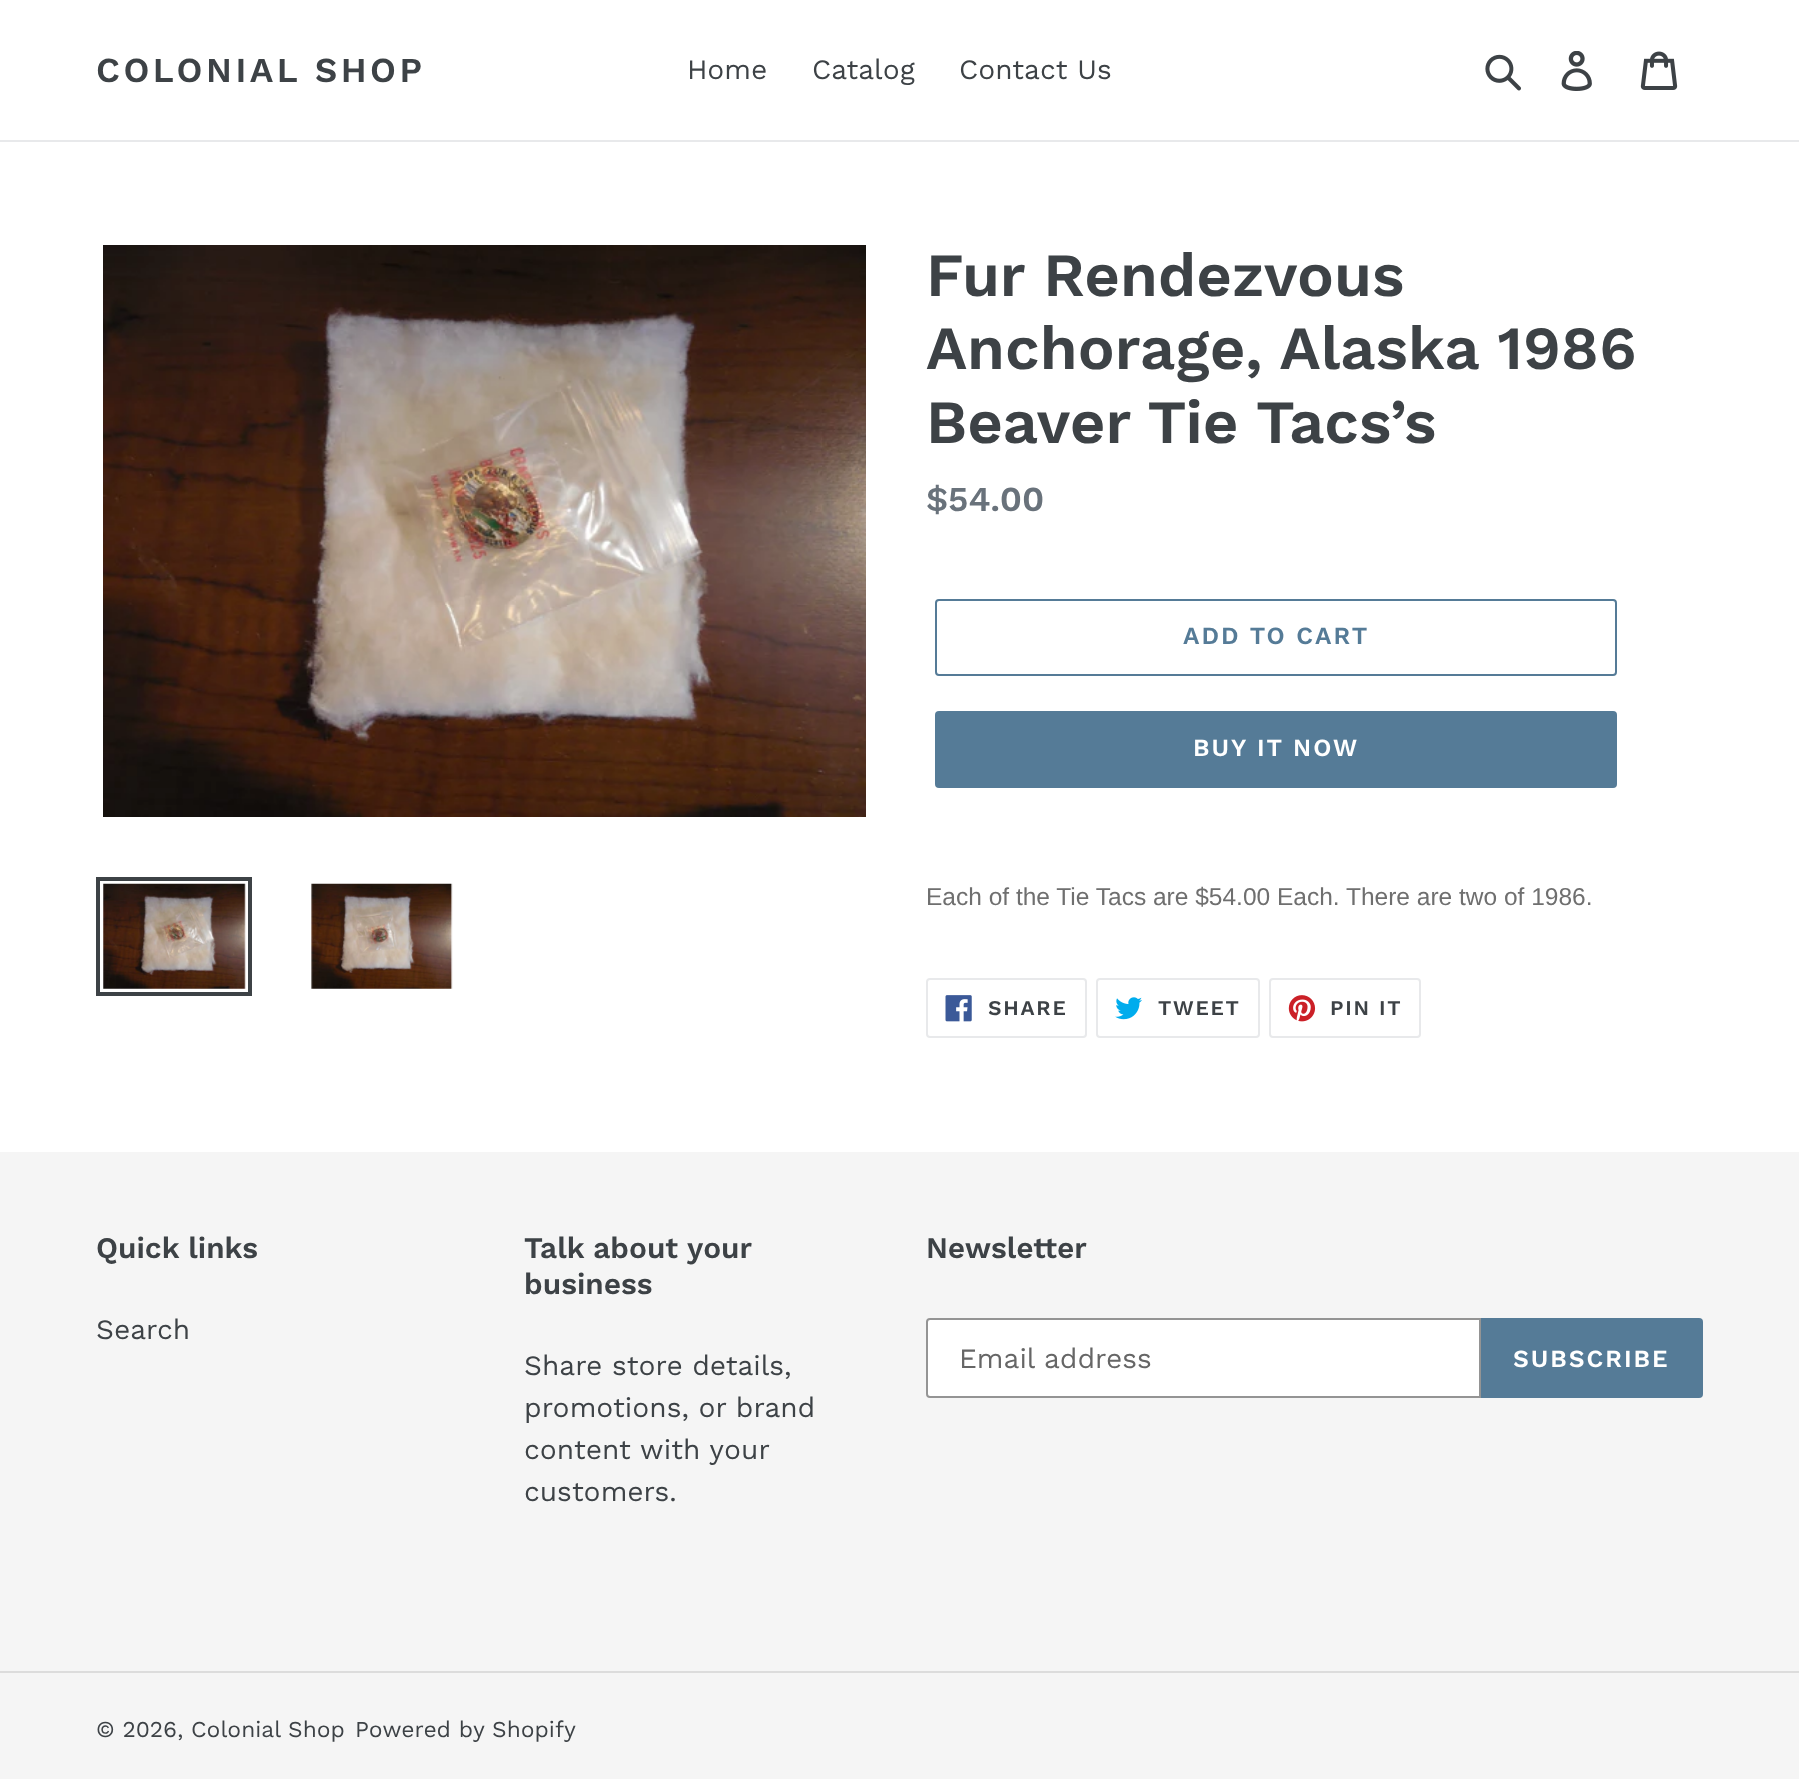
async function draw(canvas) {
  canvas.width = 1799
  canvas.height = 1779
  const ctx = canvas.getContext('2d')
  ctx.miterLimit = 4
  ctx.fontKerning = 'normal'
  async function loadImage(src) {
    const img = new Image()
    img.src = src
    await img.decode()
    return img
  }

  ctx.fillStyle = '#fff'
  ctx.fillRect(0, 0, 1799, 1779)
  ctx.fillStyle = '#e8e9eb'
  ctx.fillRect(0, 140, 1799, 2)
  ctx.letterSpacing = '3.5px'
  ctx.font = '600 35px Work Sans'
  ctx.fillStyle = '#3d4246'
  ctx.fillText('COLONIAL SHOP', 96, 82)
  ctx.letterSpacing = '0px'
  ctx.font = '28px Work Sans'
  ctx.fillText('Home', 687, 79)
  ctx.fillText('Catalog', 812, 79)
  ctx.fillText('Contact Us', 959, 79)
  ctx.drawImage(await loadImage('image0.png'), 1485, 54, 36, 37)
  ctx.drawImage(await loadImage('image1.png'), 1561, 51, 31, 40)
  ctx.drawImage(await loadImage('image2.png'), 1640, 51, 38, 39)
  ctx.drawImage(await loadImage('image3.png'), 103, 245, 763, 572)
  ctx.strokeStyle = '#3d4246'
  ctx.lineWidth = 4
  ctx.strokeRect(98, 879, 152, 115)
  ctx.drawImage(await loadImage('image4.png'), 103, 883, 143, 106)
  ctx.drawImage(await loadImage('image5.png'), 311, 883, 142, 106)
  ctx.font = '600 61.25px Work Sans'
  ctx.fillText('Fur Rendezvous', 926, 296)
  ctx.fillText('Anchorage, Alaska 1986', 926, 369)
  ctx.fillText('Beaver Tie Tacs’s', 926, 443)
  ctx.font = '600 35px Work Sans'
  ctx.fillStyle = '#69727b'
  ctx.fillText('$54.00', 926, 511)
  ctx.beginPath()
  ctx.roundRect(936, 600, 680, 75, 3)
  ctx.strokeStyle = '#557b97'
  ctx.lineWidth = 2
  ctx.stroke()
  ctx.letterSpacing = '2px'
  ctx.font = '600 24.5px Work Sans'
  ctx.fillStyle = '#557b97'
  ctx.fillText('ADD TO CART', 1183, 644)
  ctx.beginPath()
  ctx.roundRect(935, 711, 682, 77, 4)
  ctx.fill()
  ctx.fillStyle = '#fff'
  ctx.fillText('BUY IT NOW', 1193, 756)
  ctx.letterSpacing = '0px'
  ctx.font = '24.5px Liberation Sans'
  ctx.fillStyle = '#6f6f6f'
  ctx.fillText('Each of the Tie Tacs are $54.00 Each. There are two of 1986.', 926, 905)
  ctx.beginPath()
  ctx.roundRect(927, 979, 159, 58, 3)
  ctx.strokeStyle = '#e8e9eb'
  ctx.stroke()
  ctx.drawImage(await loadImage('image6.png'), 945, 995, 27, 27)
  ctx.letterSpacing = '1.75px'
  ctx.font = '600 21px Work Sans'
  ctx.fillStyle = '#3d4246'
  ctx.fillText('SHARE', 988, 1015)
  ctx.beginPath()
  ctx.roundRect(1097, 979, 162, 58, 3)
  ctx.stroke()
  ctx.drawImage(await loadImage('image7.png'), 1115, 997, 27, 23)
  ctx.fillText('TWEET', 1158, 1015)
  ctx.beginPath()
  ctx.roundRect(1270, 979, 150, 58, 3)
  ctx.stroke()
  ctx.drawImage(await loadImage('image8.png'), 1288, 995, 28, 27)
  ctx.fillText('PIN IT', 1330, 1015)
  ctx.fillStyle = '#f5f5f5'
  ctx.fillRect(0, 1152, 1799, 627)
  ctx.letterSpacing = '0px'
  ctx.font = '600 29.75px Work Sans'
  ctx.fillStyle = '#3d4246'
  ctx.fillText('Quick links', 96, 1258)
  ctx.font = '28px Work Sans'
  ctx.fillText('Search', 96, 1339)
  ctx.font = '600 29.75px Work Sans'
  ctx.fillText('Talk about your', 524, 1258)
  ctx.fillText('business', 524, 1294)
  ctx.font = '28px Work Sans'
  ctx.fillText('Share store details,', 524, 1375)
  ctx.fillText('promotions, or brand', 524, 1417)
  ctx.fillText('content with your', 524, 1459)
  ctx.fillText('customers.', 524, 1501)
  ctx.font = '600 29.75px Work Sans'
  ctx.fillText('Newsletter', 926, 1258)
  ctx.fillStyle = '#fff'
  ctx.beginPath()
  ctx.roundRect(927, 1319, 553, 78, [3, 0, 0, 3])
  ctx.fill()
  ctx.strokeStyle = '#949494'
  ctx.stroke()
  ctx.font = '28px Work Sans'
  ctx.fillStyle = '#666'
  ctx.fillText('Email address', 959, 1368)
  ctx.fillStyle = '#557b97'
  ctx.beginPath()
  ctx.roundRect(1481, 1318, 222, 80, [0, 4, 4, 0])
  ctx.fill()
  ctx.letterSpacing = '2px'
  ctx.font = '600 24.5px Work Sans'
  ctx.fillStyle = '#fff'
  ctx.fillText('SUBSCRIBE', 1513, 1367)
  ctx.fillStyle = '#dcdcdc'
  ctx.fillRect(0, 1671, 1799, 2)
  ctx.letterSpacing = '0px'
  ctx.font = '22.75px Work Sans'
  ctx.fillStyle = '#3d4246'
  ctx.fillText('© 2026, Colonial Shop', 96, 1737)
  ctx.fillText('Powered by Shopify', 355, 1737)
}

draw(document.querySelector('canvas'))
